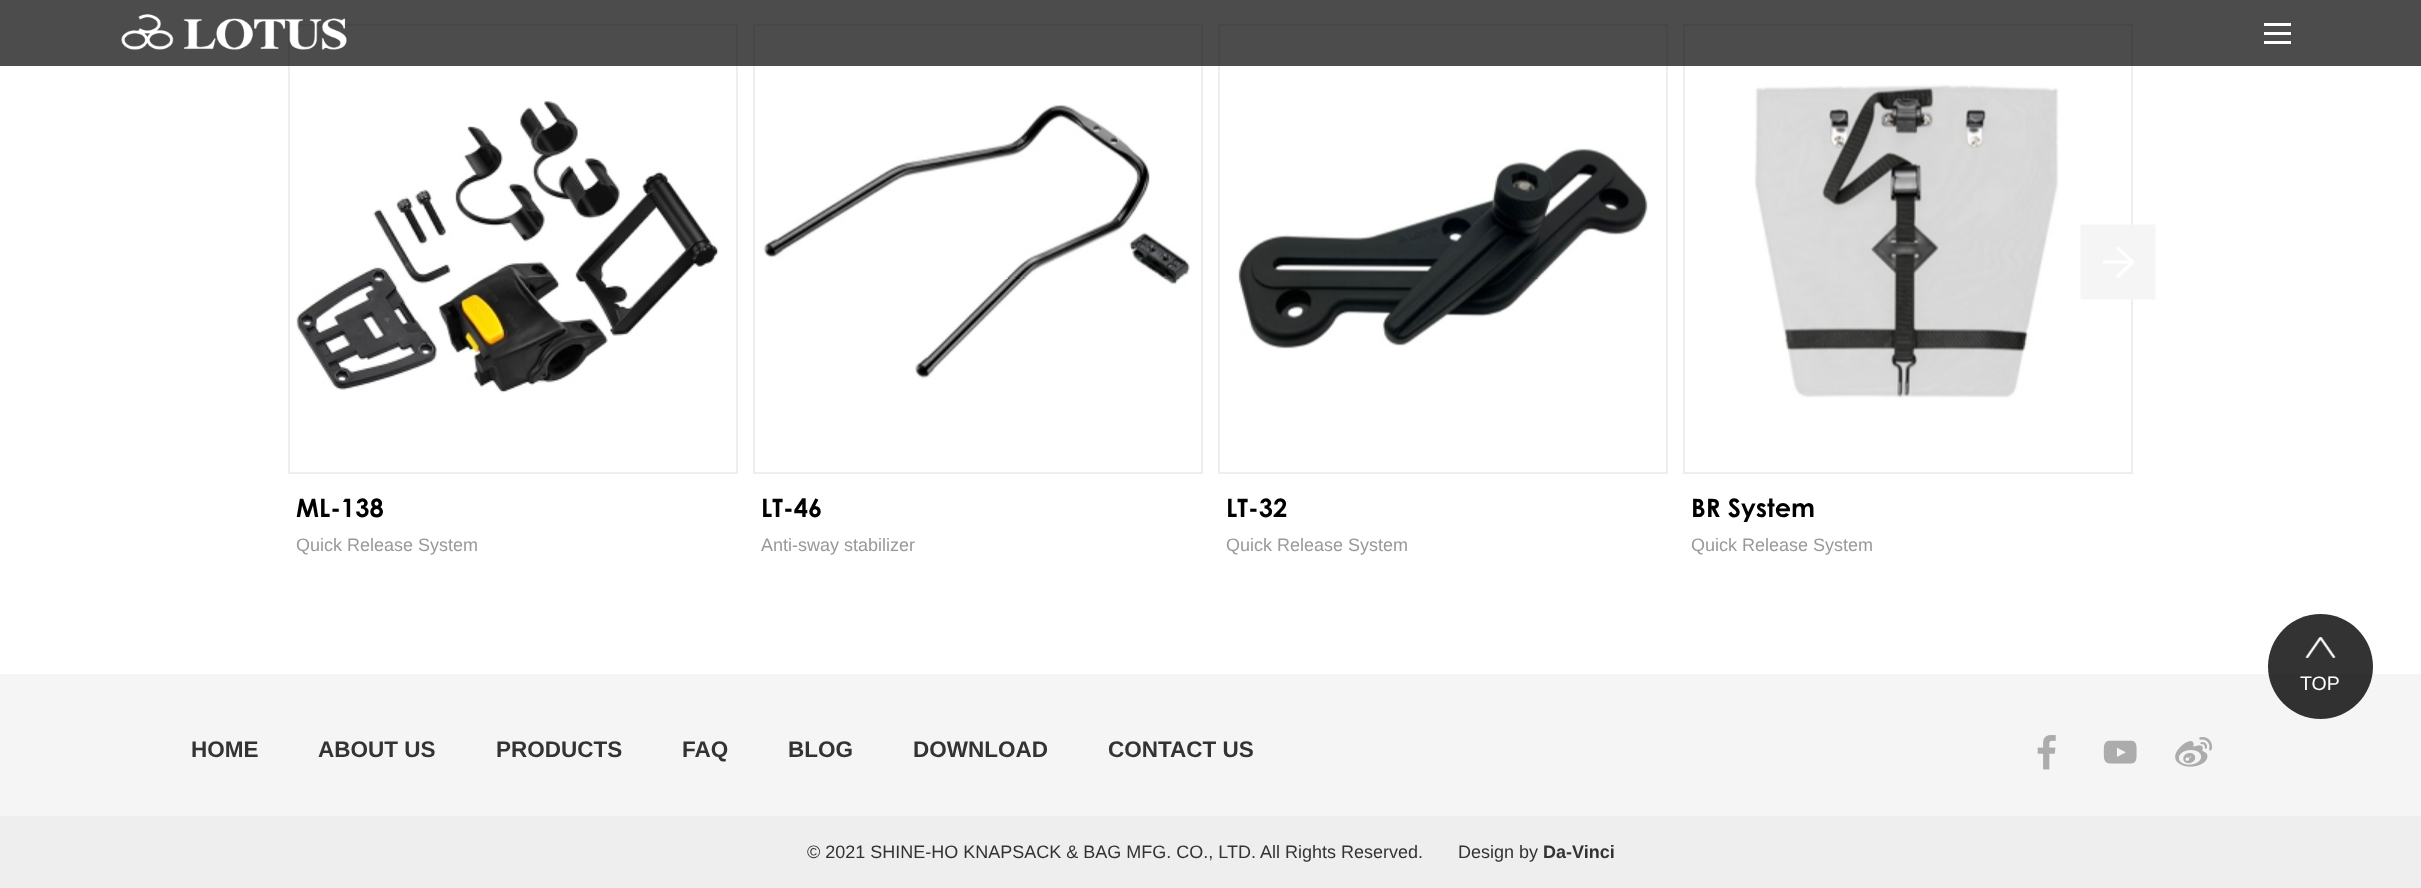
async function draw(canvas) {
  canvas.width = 2421
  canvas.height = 888
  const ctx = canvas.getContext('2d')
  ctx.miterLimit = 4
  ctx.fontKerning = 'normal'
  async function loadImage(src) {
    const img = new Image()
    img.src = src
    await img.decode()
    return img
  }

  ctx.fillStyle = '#fff'
  ctx.fillRect(0, 0, 2421, 888)
  ctx.drawImage(await loadImage('image2.png'), 296, 101, 423, 292)
  ctx.strokeStyle = '#eee'
  ctx.lineWidth = 2
  ctx.strokeRect(289, 25, 448, 448)
  ctx.drawImage(await loadImage('image3.png'), 763, 104, 427, 275)
  ctx.strokeRect(754, 25, 448, 448)
  ctx.drawImage(await loadImage('image4.png'), 1238, 148, 410, 201)
  ctx.strokeRect(1219, 25, 448, 448)
  ctx.drawImage(await loadImage('image5.png'), 1754, 84, 305, 314)
  ctx.strokeRect(1684, 25, 448, 448)
  ctx.fillStyle = '#000000b3'
  ctx.fillRect(0, 0, 2421, 66)
  ctx.drawImage(await loadImage('image0.png'), 121, 14, 226, 36)
  ctx.fillStyle = '#fff'
  ctx.fillRect(2264, 23, 27, 3)
  ctx.fillRect(2264, 32, 27, 3)
  ctx.fillRect(2264, 41, 27, 3)
  ctx.drawImage(await loadImage('image1.png'), 2080, 224, 76, 76)
  ctx.font = 'bold 25.5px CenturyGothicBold'
  ctx.fillStyle = '#000'
  ctx.fillText('ML-138', 296, 517)
  ctx.font = '18px Liberation Sans'
  ctx.fillStyle = '#999'
  ctx.fillText('Quick Release System', 296, 551)
  ctx.font = 'bold 25.5px CenturyGothicBold'
  ctx.fillStyle = '#000'
  ctx.fillText('LT-46', 761, 517)
  ctx.font = '18px Liberation Sans'
  ctx.fillStyle = '#999'
  ctx.fillText('Anti-sway stabilizer', 761, 551)
  ctx.font = 'bold 25.5px CenturyGothicBold'
  ctx.fillStyle = '#000'
  ctx.fillText('LT-32', 1226, 517)
  ctx.font = '18px Liberation Sans'
  ctx.fillStyle = '#999'
  ctx.fillText('Quick Release System', 1226, 551)
  ctx.font = 'bold 25.5px CenturyGothicBold'
  ctx.fillStyle = '#000'
  ctx.fillText('BR System', 1691, 517)
  ctx.font = '18px Liberation Sans'
  ctx.fillStyle = '#999'
  ctx.fillText('Quick Release System', 1691, 551)
  ctx.fillStyle = '#f5f5f5'
  ctx.fillRect(0, 674, 2421, 142)
  ctx.fillStyle = '#000000cc'
  ctx.beginPath()
  ctx.arc(2320.5, 666.5, 52.5, 0, 2 * Math.PI)
  ctx.fill()
  ctx.drawImage(await loadImage('image6.png'), 2305, 637, 31, 21)
  ctx.font = '19.5px Liberation Sans'
  ctx.fillStyle = '#fff'
  ctx.fillText('TOP', 2300, 690)
  ctx.font = 'bold 22.5px Liberation Sans'
  ctx.fillStyle = '#333'
  ctx.fillText('HOME', 191, 757)
  ctx.fillText('ABOUT US', 318, 757)
  ctx.fillText('PRODUCTS', 496, 757)
  ctx.fillText('FAQ', 682, 757)
  ctx.fillText('BLOG', 788, 757)
  ctx.fillText('DOWNLOAD', 913, 757)
  ctx.fillText('CONTACT US', 1108, 757)
  ctx.drawImage(await loadImage('image7.png'), 2037, 735, 19, 35)
  ctx.drawImage(await loadImage('image8.png'), 2103, 740, 34, 24)
  ctx.drawImage(await loadImage('image9.png'), 2175, 737, 37, 30)
  ctx.fillStyle = '#eee'
  ctx.fillRect(0, 816, 2421, 72)
  ctx.font = '18px Liberation Sans'
  ctx.fillStyle = '#333'
  ctx.fillText('© 2021 SHINE-HO KNAPSACK & BAG MFG. CO., LTD. All Rights Reserved.', 807, 858)
  ctx.fillText('Design by', 1458, 858)
  ctx.font = 'bold 18px Liberation Sans'
  ctx.fillText('Da-Vinci', 1543, 858)
}

draw(document.querySelector('canvas'))
